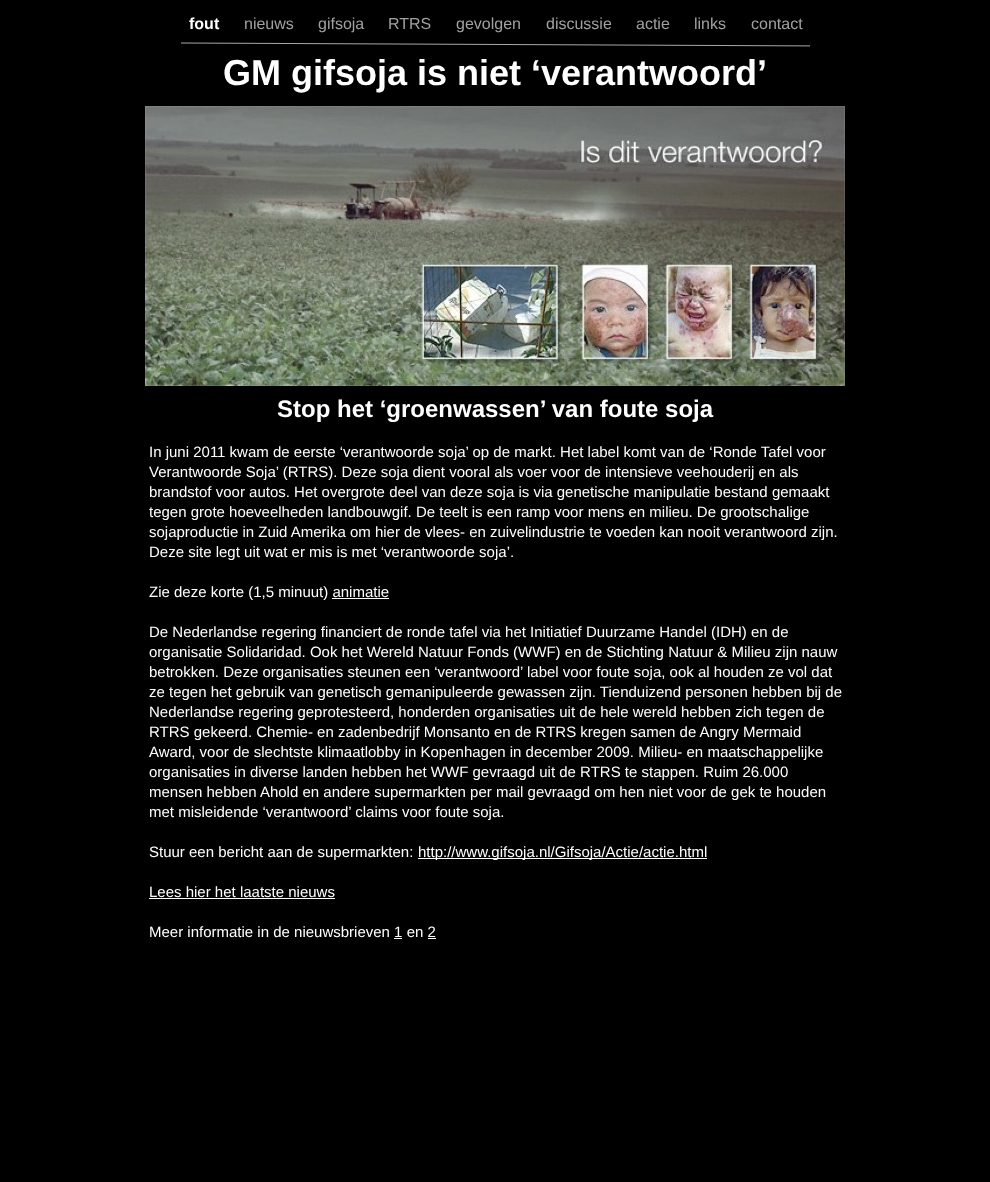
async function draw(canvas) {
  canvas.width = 990
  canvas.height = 1182
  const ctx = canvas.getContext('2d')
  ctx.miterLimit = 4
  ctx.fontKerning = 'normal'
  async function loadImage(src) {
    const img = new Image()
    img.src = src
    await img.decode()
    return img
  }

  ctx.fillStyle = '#000'
  ctx.fillRect(0, 0, 990, 1182)
  ctx.font = 'bold 16px Liberation Sans'
  ctx.fillStyle = '#fff'
  ctx.fillText('fout', 189, 29)
  ctx.font = '16px Liberation Sans'
  ctx.fillStyle = '#a1a1a1'
  ctx.fillText('nieuws', 244, 29)
  ctx.fillText('gifsoja', 318, 29)
  ctx.fillText('RTRS', 388, 29)
  ctx.fillText('gevolgen', 456, 29)
  ctx.fillText('discussie', 546, 29)
  ctx.fillText('actie', 636, 29)
  ctx.fillText('links', 694, 29)
  ctx.fillText('contact', 751, 29)
  ctx.drawImage(await loadImage('image0.png'), 181, 42, 629, 5)
  ctx.font = 'bold 36px Liberation Sans'
  ctx.fillStyle = '#fff'
  ctx.fillText('GM gifsoja is niet ‘verantwoord’', 223, 85)
  ctx.drawImage(await loadImage('image1.png'), 145, 106, 700, 280)
  ctx.font = 'bold 24px Liberation Sans'
  ctx.fillText('Stop het ‘groenwassen’ van foute soja', 277, 417)
  ctx.font = '15px Liberation Sans'
  ctx.fillText('In juni 2011 kwam de eerste ‘verantwoorde soja’ op de markt. Het label komt van de ‘Ronde Tafel voor', 149, 457)
  ctx.fillText('Verantwoorde Soja’ (RTRS). Deze soja dient vooral als voer voor de intensieve veehouderij en als', 149, 477)
  ctx.fillText('brandstof voor autos. Het overgrote deel van deze soja is via genetische manipulatie bestand gemaakt', 149, 497)
  ctx.fillText('tegen grote hoeveelheden landbouwgif. De teelt is een ramp voor mens en milieu. De grootschalige', 149, 517)
  ctx.fillText('sojaproductie in Zuid Amerika om hier de vlees- en zuivelindustrie te voeden kan nooit verantwoord zijn.', 149, 537)
  ctx.fillText('Deze site legt uit wat er mis is met ‘verantwoorde soja’.', 149, 557)
  ctx.fillText('Zie deze korte (1,5 minuut) animatie', 149, 597)
  ctx.fillRect(332, 598, 57, 1)
  ctx.fillText('De Nederlandse regering financiert de ronde tafel via het Initiatief Duurzame Handel (IDH) en de', 149, 637)
  ctx.fillText('organisatie Solidaridad. Ook het Wereld Natuur Fonds (WWF) en de Stichting Natuur & Milieu zijn nauw', 149, 657)
  ctx.fillText('betrokken. Deze organisaties steunen een ‘verantwoord’ label voor foute soja, ook al houden ze vol dat', 149, 677)
  ctx.fillText('ze tegen het gebruik van genetisch gemanipuleerde gewassen zijn. Tienduizend personen hebben bij de', 149, 697)
  ctx.fillText('Nederlandse regering geprotesteerd, honderden organisaties uit de hele wereld hebben zich tegen de', 149, 717)
  ctx.fillText('RTRS gekeerd. Chemie- en zadenbedrijf Monsanto en de RTRS kregen samen de Angry Mermaid', 149, 737)
  ctx.fillText('Award, voor de slechtste klimaatlobby in Kopenhagen in december 2009. Milieu- en maatschappelijke', 149, 757)
  ctx.fillText('organisaties in diverse landen hebben het WWF gevraagd uit de RTRS te stappen. Ruim 26.000', 149, 777)
  ctx.fillText('mensen hebben Ahold en andere supermarkten per mail gevraagd om hen niet voor de gek te houden', 149, 797)
  ctx.fillText('met misleidende ‘verantwoord’ claims voor foute soja.', 149, 817)
  ctx.fillText('Stuur een bericht aan de supermarkten:', 149, 857)
  ctx.fillRect(418, 858, 289, 1)
  ctx.fillText('http://www.gifsoja.nl/Gifsoja/Actie/actie.html', 418, 857)
  ctx.fillText('Lees hier het laatste nieuws', 149, 897)
  ctx.fillRect(149, 898, 186, 1)
  ctx.fillText('Meer informatie in de nieuwsbrieven 1 en 2', 149, 937)
  ctx.fillRect(394, 938, 8, 1)
  ctx.fillRect(428, 938, 8, 1)
}

draw(document.querySelector('canvas'))
